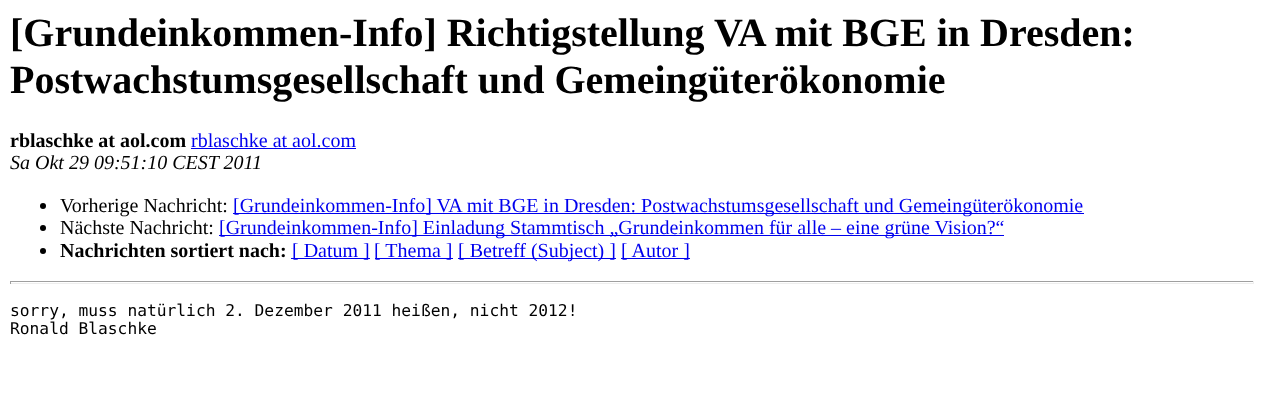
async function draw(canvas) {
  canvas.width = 1263
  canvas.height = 413
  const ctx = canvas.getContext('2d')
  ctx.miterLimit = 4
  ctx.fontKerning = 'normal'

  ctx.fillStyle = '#fff'
  ctx.fillRect(0, 0, 1263, 413)
  ctx.font = 'bold 40px Liberation Serif'
  ctx.fillStyle = '#000'
  ctx.fillText('[Grundeinkommen-Info] Richtigstellung', 10, 46)
  ctx.fillText('VA mit BGE in Dresden:', 714, 46)
  ctx.fillText('Postwachstumsgesellschaft und Gemeingüterökonomie', 10, 93)
  ctx.font = 'bold 20px Liberation Serif'
  ctx.fillText('rblaschke at aol.com', 10, 147)
  ctx.font = '20px Liberation Serif'
  ctx.fillStyle = '#00e'
  ctx.fillText('rblaschke at aol.com', 191, 147)
  ctx.fillRect(191, 148, 165, 1)
  ctx.font = 'italic 20px Liberation Serif'
  ctx.fillStyle = '#000'
  ctx.fillText('Sa Okt 29 09:51:10 CEST 2011', 10, 169)
  ctx.beginPath()
  ctx.arc(43, 206, 3, 0, 2 * Math.PI)
  ctx.fill()
  ctx.font = '20px Liberation Serif'
  ctx.fillText('Vorherige Nachricht:', 60, 212)
  ctx.fillStyle = '#00e'
  ctx.fillRect(233, 213, 851, 1)
  ctx.fillText('[Grundeinkommen-Info] VA mit BGE in Dresden: Postwachstumsgesellschaft und Gemeingüterökonomie', 233, 212)
  ctx.fillStyle = '#000'
  ctx.beginPath()
  ctx.arc(43, 228, 3, 0, 2 * Math.PI)
  ctx.fill()
  ctx.fillText('Nächste Nachricht:', 60, 234)
  ctx.fillStyle = '#00e'
  ctx.fillRect(219, 235, 785, 1)
  ctx.fillText('[Grundeinkommen-Info] Einladung Stammtisch „Grundeinkommen für alle – eine grüne Vision?“', 219, 234)
  ctx.fillStyle = '#000'
  ctx.beginPath()
  ctx.arc(43, 251, 3, 0, 2 * Math.PI)
  ctx.fill()
  ctx.font = 'bold 20px Liberation Serif'
  ctx.fillText('Nachrichten sortiert nach:', 60, 257)
  ctx.fillStyle = '#00e'
  ctx.fillRect(291, 258, 79, 1)
  ctx.font = '20px Liberation Serif'
  ctx.fillText('[ Datum ]', 292, 257)
  ctx.fillRect(375, 258, 78, 1)
  ctx.fillText('[ Thema ]', 374, 257)
  ctx.fillRect(458, 258, 158, 1)
  ctx.fillText('[ Betreff (Subject) ]', 458, 257)
  ctx.fillRect(621, 258, 69, 1)
  ctx.fillText('[ Autor ]', 621, 257)
  ctx.fillStyle = '#9f9f9f'
  ctx.fillRect(10, 281, 1244, 1)
  ctx.fillStyle = '#eee'
  ctx.fillRect(1253, 281, 1, 3)
  ctx.fillRect(10, 283, 1244, 1)
  ctx.fillStyle = '#9f9f9f'
  ctx.fillRect(10, 281, 1, 3)
  ctx.font = '16.25px DejaVu Sans Mono'
  ctx.fillStyle = '#000'
  ctx.fillText('sorry, muss natürlich 2. Dezember 2011 heißen, nicht 2012!', 10, 316)
  ctx.fillText('Ronald Blaschke', 10, 334)
}

draw(document.querySelector('canvas'))
